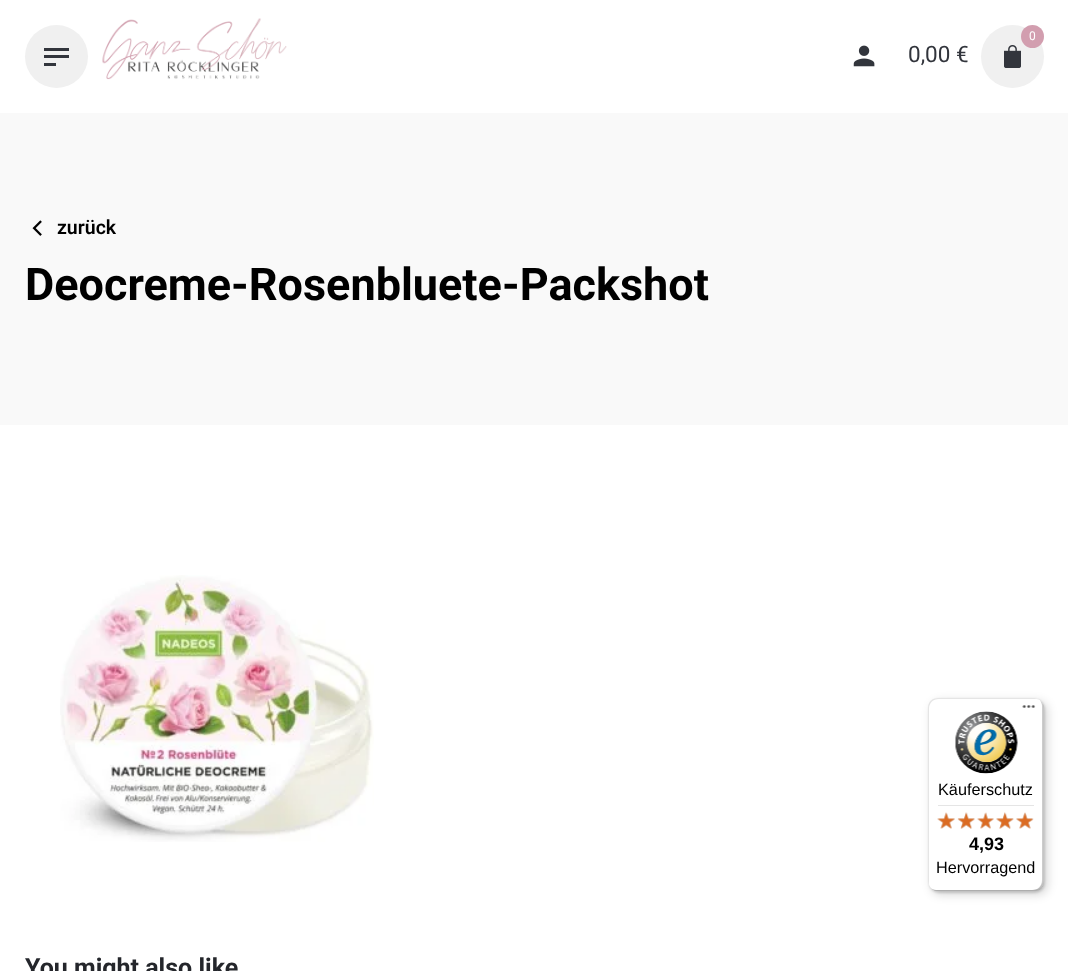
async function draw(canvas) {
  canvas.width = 1068
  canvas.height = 971
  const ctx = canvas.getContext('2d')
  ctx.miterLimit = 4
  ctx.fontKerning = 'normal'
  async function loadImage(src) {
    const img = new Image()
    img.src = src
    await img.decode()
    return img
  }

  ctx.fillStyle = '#fff'
  ctx.fillRect(0, 0, 1068, 971)
  ctx.fillStyle = '#f0f0f0'
  ctx.beginPath()
  ctx.arc(56.5, 56.5, 31.5, 0, 2 * Math.PI)
  ctx.fill()
  ctx.fillStyle = '#32353c'
  ctx.fillRect(44, 48, 25, 3)
  ctx.fillRect(44, 55, 25, 3)
  ctx.fillRect(44, 63, 12, 3)
  ctx.drawImage(await loadImage('image0.png'), 102, 18, 185, 62)
  ctx.drawImage(await loadImage('image1.png'), 853, 45, 22, 22)
  ctx.fillStyle = '#f0f0f0'
  ctx.beginPath()
  ctx.arc(1012.5, 56.5, 31.5, 0, 2 * Math.PI)
  ctx.fill()
  ctx.fillStyle = '#d29eaf'
  ctx.beginPath()
  ctx.arc(1032.5, 36.5, 11.5, 0, 2 * Math.PI)
  ctx.fill()
  ctx.font = '12px Roboto'
  ctx.fillStyle = '#fff'
  ctx.fillText('0', 1029, 40)
  ctx.drawImage(await loadImage('image2.png'), 1004, 45, 17, 23)
  ctx.font = '22.5px Roboto'
  ctx.fillStyle = '#32353c'
  ctx.fillText('0,00 €', 908, 62)
  ctx.fillStyle = '#f9f9f9'
  ctx.fillRect(0, 113, 1068, 312)
  ctx.drawImage(await loadImage('image3.png'), 32, 220, 10, 16)
  ctx.font = '600 19.5px Roboto'
  ctx.fillStyle = '#000'
  ctx.fillText('zurück', 57, 234)
  ctx.font = 'bold 45px Roboto'
  ctx.fillText('Deocreme-Rosenbluete-Packshot', 25, 300)
  ctx.drawImage(await loadImage('image4.png'), 60, 575, 314, 267)
  ctx.font = 'bold 25px Roboto'
  ctx.fillStyle = '#24262b'
  ctx.fillText('You might also like', 25, 976)
  ctx.fillStyle = '#00000026'
  ctx.filter = 'blur(5px)'
  ctx.beginPath()
  ctx.roundRect(931, 701, 117, 194, 10)
  ctx.fill()
  ctx.filter = 'none'
  ctx.filter = 'blur(1px)'
  ctx.beginPath()
  ctx.roundRect(929, 699, 116, 194, 10)
  ctx.fill()
  ctx.filter = 'none'
  ctx.fillStyle = '#fff'
  ctx.beginPath()
  ctx.roundRect(928, 698, 116, 193, 10)
  ctx.fill()
  ctx.fillStyle = '#e5e5e5'
  ctx.beginPath()
  ctx.moveTo(939, 699)
  ctx.lineTo(1035, 699)
  ctx.bezierCurveTo(1037, 699, 1039, 699, 1040, 700)
  ctx.bezierCurveTo(1039, 699, 1036, 698, 1034, 698)
  ctx.lineTo(938, 698)
  ctx.bezierCurveTo(932, 698, 928, 702, 928, 708)
  ctx.lineTo(928, 881)
  ctx.bezierCurveTo(928, 883, 929, 886, 930, 887)
  ctx.bezierCurveTo(929, 886, 929, 884, 929, 882)
  ctx.lineTo(929, 709)
  ctx.bezierCurveTo(929, 703, 933, 699, 939, 699)
  ctx.closePath()
  ctx.fill()
  ctx.fillStyle = '#00000033'
  ctx.beginPath()
  ctx.moveTo(932, 889)
  ctx.bezierCurveTo(934, 890, 936, 891, 938, 891)
  ctx.lineTo(1034, 891)
  ctx.bezierCurveTo(1040, 891, 1044, 887, 1044, 881)
  ctx.lineTo(1044, 708)
  ctx.bezierCurveTo(1044, 705, 1042, 702, 1040, 700)
  ctx.bezierCurveTo(1041, 702, 1042, 704, 1042, 706)
  ctx.lineTo(1042, 880)
  ctx.bezierCurveTo(1042, 886, 1038, 890, 1032, 890)
  ctx.lineTo(936, 890)
  ctx.closePath()
  ctx.fill()
  ctx.fillStyle = '#32323233'
  ctx.beginPath()
  ctx.moveTo(932, 889)
  ctx.bezierCurveTo(933, 890, 936, 891, 938, 891)
  ctx.lineTo(1034, 891)
  ctx.bezierCurveTo(1040, 891, 1044, 887, 1044, 881)
  ctx.lineTo(1044, 708)
  ctx.bezierCurveTo(1044, 706, 1043, 703, 1042, 702)
  ctx.bezierCurveTo(1043, 703, 1043, 705, 1043, 707)
  ctx.lineTo(1043, 880)
  ctx.bezierCurveTo(1043, 886, 1039, 890, 1033, 890)
  ctx.lineTo(937, 890)
  ctx.bezierCurveTo(935, 890, 933, 890, 932, 889)
  ctx.closePath()
  ctx.fill()
  ctx.fillStyle = '#ffffff4d'
  ctx.beginPath()
  ctx.moveTo(1033, 891)
  ctx.lineTo(1034, 891)
  ctx.bezierCurveTo(1040, 891, 1044, 887, 1044, 881)
  ctx.lineTo(1044, 708)
  ctx.bezierCurveTo(1044, 706, 1043, 703, 1042, 702)
  ctx.bezierCurveTo(1043, 703, 1043, 705, 1043, 707)
  ctx.lineTo(1043, 881)
  ctx.bezierCurveTo(1043, 886, 1039, 891, 1033, 891)
  ctx.closePath()
  ctx.fill()
  ctx.drawImage(await loadImage('image5.png'), 1022, 705, 14, 3)
  ctx.drawImage(await loadImage('image6.png'), 955, 711, 63, 63)
  ctx.font = '16.25px Liberation Sans'
  ctx.fillStyle = '#000'
  ctx.fillText('Käuferschutz', 938, 795)
  ctx.fillStyle = '#e5e5e5'
  ctx.fillRect(938, 805, 96, 1)
  ctx.drawImage(await loadImage('image7.png'), 937, 813, 18, 15)
  ctx.drawImage(await loadImage('image8.png'), 958, 812, 17, 17)
  ctx.drawImage(await loadImage('image9.png'), 977, 813, 17, 15)
  ctx.drawImage(await loadImage('image10.png'), 996, 812, 18, 17)
  ctx.drawImage(await loadImage('image11.png'), 1016, 813, 18, 15)
  ctx.drawImage(await loadImage('image12.png'), 937, 812, 18, 17)
  ctx.drawImage(await loadImage('image13.png'), 957, 812, 18, 17)
  ctx.drawImage(await loadImage('image14.png'), 977, 812, 17, 17)
  ctx.drawImage(await loadImage('image15.png'), 996, 812, 18, 17)
  ctx.drawImage(await loadImage('image16.png'), 1016, 812, 17, 17)
  ctx.font = 'bold 18px Liberation Sans'
  ctx.fillStyle = '#000'
  ctx.fillText('4,93', 969, 850)
  ctx.font = '16.25px Liberation Sans'
  ctx.fillText('Hervorragend', 936, 873)
}

draw(document.querySelector('canvas'))
